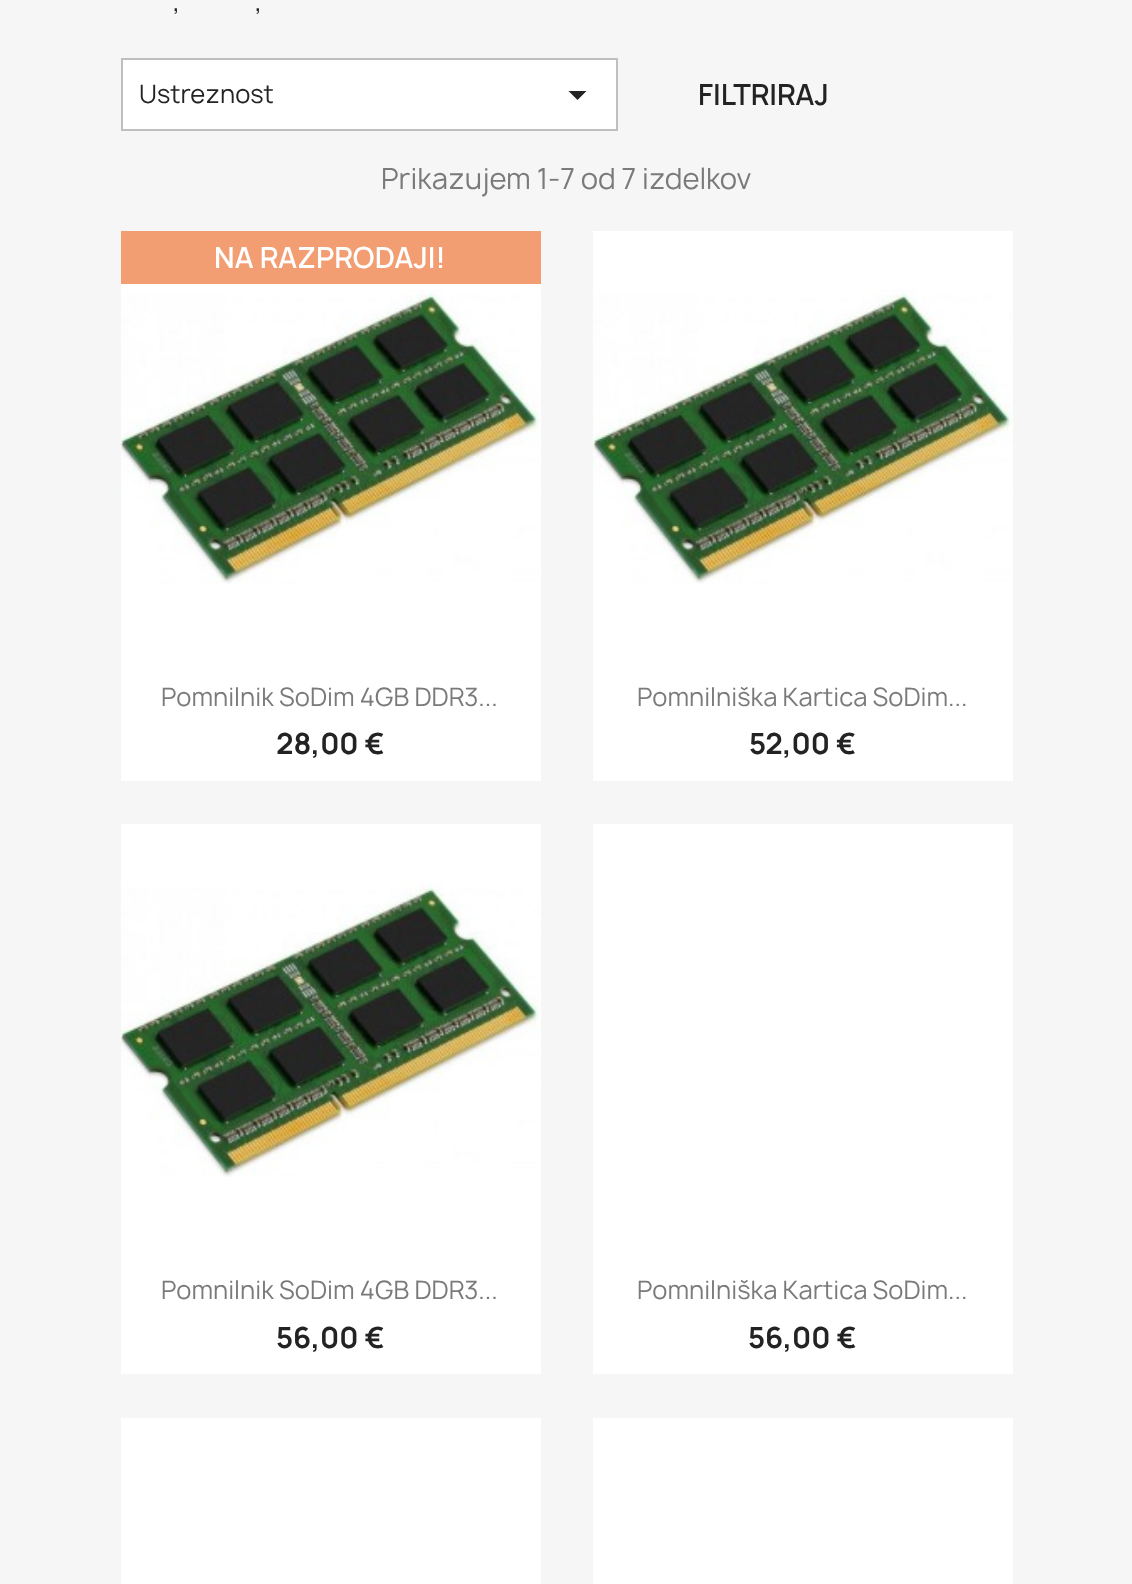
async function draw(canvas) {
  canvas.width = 1132
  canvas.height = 1584
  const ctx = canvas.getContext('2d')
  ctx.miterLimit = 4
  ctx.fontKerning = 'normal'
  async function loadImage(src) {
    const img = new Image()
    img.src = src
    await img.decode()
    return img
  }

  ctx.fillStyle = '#f6f6f6'
  ctx.fillRect(0, 0, 1132, 1584)
  ctx.font = '26px Manrope'
  ctx.fillStyle = '#232323'
  ctx.fillText(',', 173, 11)
  ctx.fillText(',', 255, 11)
  ctx.fillStyle = '#fff'
  ctx.beginPath()
  ctx.rect(122, 59, 495, 71)
  ctx.fill()
  ctx.strokeStyle = '#bfbfbf'
  ctx.lineWidth = 2
  ctx.stroke()
  ctx.font = '24.5px Manrope'
  ctx.fillStyle = '#232323'
  ctx.fillText('Ustreznost', 139, 103)
  ctx.beginPath()
  ctx.moveTo(568.5, 91)
  ctx.lineTo(586.5, 91)
  ctx.lineTo(577.5, 100)
  ctx.closePath()
  ctx.fill()
  ctx.font = '600 28px Manrope'
  ctx.fillText('FILTRIRAJ', 698, 105)
  ctx.font = '28px Manrope'
  ctx.fillStyle = '#7a7a7a'
  ctx.fillText('Prikazujem 1-7 od 7 izdelkov', 381, 189)
  ctx.fillStyle = '#fff'
  ctx.fillRect(121, 284, 420, 497)
  ctx.fillStyle = '#f39d72'
  ctx.fillRect(121, 231, 420, 53)
  ctx.font = '600 28px Manrope'
  ctx.fillStyle = '#fff'
  ctx.fillText('NA RAZPRODAJI!', 214, 268)
  ctx.drawImage(await loadImage('image0.png'), 121, 290, 419, 294)
  ctx.font = '24.5px Manrope'
  ctx.fillStyle = '#7a7a7a'
  ctx.fillText('Pomnilnik SoDim 4GB DDR3...', 161, 706)
  ctx.font = 'bold 28px Manrope'
  ctx.fillStyle = '#232323'
  ctx.fillText('28,00 €', 276, 754)
  ctx.fillStyle = '#fff'
  ctx.fillRect(593, 231, 420, 550)
  ctx.drawImage(await loadImage('image1.png'), 593, 289, 420, 295)
  ctx.font = '24.5px Manrope'
  ctx.fillStyle = '#7a7a7a'
  ctx.fillText('Pomnilniška Kartica SoDim...', 637, 706)
  ctx.font = 'bold 28px Manrope'
  ctx.fillStyle = '#232323'
  ctx.fillText('52,00 €', 749, 754)
  ctx.fillStyle = '#fff'
  ctx.fillRect(121, 824, 420, 550)
  ctx.drawImage(await loadImage('image2.png'), 121, 883, 419, 294)
  ctx.font = '24.5px Manrope'
  ctx.fillStyle = '#7a7a7a'
  ctx.fillText('Pomnilnik SoDim 4GB DDR3...', 161, 1299)
  ctx.font = 'bold 28px Manrope'
  ctx.fillStyle = '#232323'
  ctx.fillText('56,00 €', 276, 1348)
  ctx.fillStyle = '#fff'
  ctx.fillRect(593, 824, 420, 550)
  ctx.font = '24.5px Manrope'
  ctx.fillStyle = '#7a7a7a'
  ctx.fillText('Pomnilniška Kartica SoDim...', 637, 1299)
  ctx.font = 'bold 28px Manrope'
  ctx.fillStyle = '#232323'
  ctx.fillText('56,00 €', 748, 1348)
  ctx.fillStyle = '#fff'
  ctx.fillRect(121, 1418, 420, 166)
  ctx.fillRect(593, 1418, 420, 166)
}

draw(document.querySelector('canvas'))
